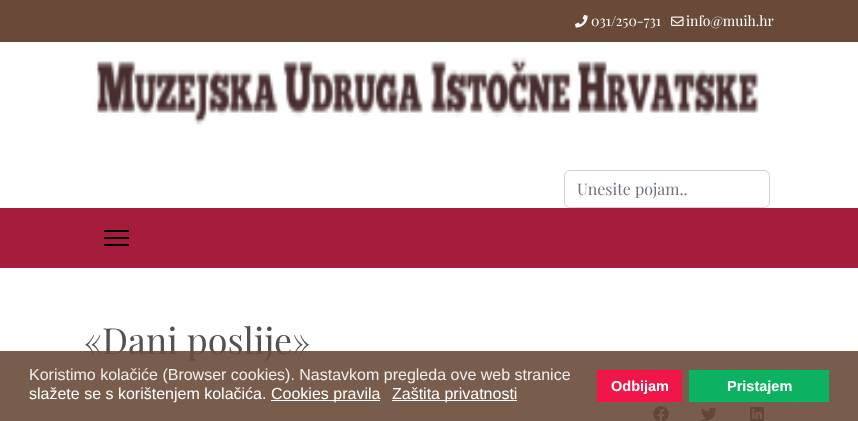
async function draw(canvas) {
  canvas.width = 858
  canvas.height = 421
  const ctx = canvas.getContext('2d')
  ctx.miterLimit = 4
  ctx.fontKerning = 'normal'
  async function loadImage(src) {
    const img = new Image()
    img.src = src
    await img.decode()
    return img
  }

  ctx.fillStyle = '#fff'
  ctx.fillRect(0, 0, 858, 421)
  ctx.fillStyle = '#694a38'
  ctx.fillRect(0, 0, 858, 42)
  ctx.drawImage(await loadImage('image0.png'), 575, 15, 13, 13)
  ctx.font = '14px Playfair Display'
  ctx.fillStyle = '#fff'
  ctx.fillText('031/250-731', 591, 26)
  ctx.drawImage(await loadImage('image1.png'), 671, 16, 13, 10)
  ctx.fillText('info@muih.hr', 686, 26)
  ctx.drawImage(await loadImage('image2.png'), 95, 57, 664, 68)
  ctx.beginPath()
  ctx.roundRect(564.5, 170.5, 205, 37, 5.5)
  ctx.strokeStyle = '#ced4da'
  ctx.stroke()
  ctx.font = '16px Playfair Display'
  ctx.fillStyle = '#6c757d'
  ctx.fillText('Unesite pojam..', 577, 195)
  ctx.fillStyle = '#a61c3c'
  ctx.fillRect(0, 208, 858, 60)
  ctx.fillStyle = '#000'
  ctx.fillRect(104, 230, 25, 2)
  ctx.fillRect(104, 237, 25, 2)
  ctx.fillRect(104, 244, 25, 2)
  ctx.font = '36px Playfair Display'
  ctx.fillStyle = '#545151'
  ctx.fillText('«Dani poslije»', 84, 354)
  ctx.fillStyle = '#f5f5f5'
  ctx.fillRect(84, 379, 605, 1)
  ctx.beginPath()
  ctx.arc(661, 413, 16.5, 0, 2 * Math.PI)
  ctx.strokeStyle = '#ededed'
  ctx.stroke()
  ctx.drawImage(await loadImage('image3.png'), 653, 406, 16, 15)
  ctx.beginPath()
  ctx.arc(709, 413, 16.5, 0, 2 * Math.PI)
  ctx.stroke()
  ctx.drawImage(await loadImage('image4.png'), 701, 407, 16, 14)
  ctx.beginPath()
  ctx.arc(757, 413, 16.5, 0, 2 * Math.PI)
  ctx.stroke()
  ctx.drawImage(await loadImage('image5.png'), 750, 407, 14, 14)
  ctx.fillStyle = '#694a38e6'
  ctx.fillRect(0, 351, 858, 70)
  ctx.font = '16px Liberation Sans'
  ctx.fillStyle = '#f1efed'
  ctx.fillText('Koristimo kolačiće (Browser cookies). Nastavkom pregleda ove web stranice', 29, 380)
  ctx.fillStyle = '#fff'
  ctx.fillText('slažete se s korištenjem kolačića.', 29, 399)
  ctx.fillRect(271, 400, 109, 1)
  ctx.fillText('Cookies pravila', 271, 399)
  ctx.fillRect(392, 400, 125, 1)
  ctx.fillText('Zaštita privatnosti', 392, 399)
  ctx.fillStyle = '#ef174a'
  ctx.beginPath()
  ctx.rect(598, 371, 83, 30)
  ctx.fill()
  ctx.strokeStyle = '#fb104a'
  ctx.lineWidth = 2
  ctx.stroke()
  ctx.font = 'bold 14.5px Liberation Sans'
  ctx.fillStyle = '#fff'
  ctx.fillText('Odbijam', 611, 391)
  ctx.fillStyle = '#0cb161'
  ctx.beginPath()
  ctx.rect(690, 371, 138, 30)
  ctx.fill()
  ctx.strokeStyle = '#01b963'
  ctx.stroke()
  ctx.fillStyle = '#fff'
  ctx.fillText('Pristajem', 727, 391)
}

draw(document.querySelector('canvas'))
